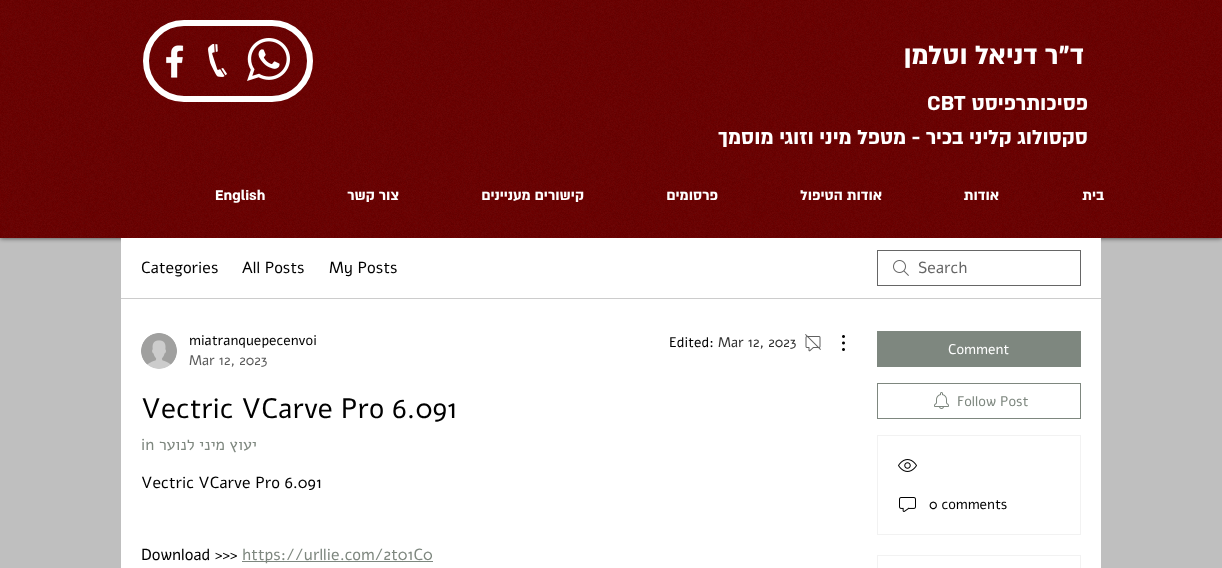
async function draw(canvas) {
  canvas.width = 1222
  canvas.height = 568
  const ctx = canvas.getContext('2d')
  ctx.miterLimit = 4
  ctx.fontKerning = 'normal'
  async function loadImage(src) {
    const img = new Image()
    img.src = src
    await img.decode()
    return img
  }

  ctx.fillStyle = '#bfbfbf'
  ctx.fillRect(0, 0, 1222, 568)
  ctx.fillStyle = '#000000b3'
  ctx.filter = 'blur(2.5px)'
  ctx.beginPath()
  ctx.rect(0, 0, 1222, 238)
  ctx.fill()
  ctx.filter = 'none'
  ctx.fillStyle = '#6b0000'
  ctx.fillRect(0, 0, 1222, 238)
  ctx.drawImage(await loadImage('image0.png'), 0, 0, 1222, 238)
  ctx.beginPath()
  ctx.roundRect(146, 23, 164, 76, 38)
  ctx.strokeStyle = '#fff'
  ctx.lineWidth = 6
  ctx.stroke()
  ctx.drawImage(await loadImage('image1.png'), 247, 38, 43, 43)
  ctx.drawImage(await loadImage('image2.png'), 166, 45, 18, 33)
  ctx.drawImage(await loadImage('image3.png'), 208, 44, 19, 33)
  ctx.direction = 'rtl'
  ctx.font = 'bold 30px "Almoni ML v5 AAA"'
  ctx.fillStyle = '#fff'
  ctx.fillText('ד"ר דניאל וטלמן', 1084, 64)
  ctx.direction = 'ltr'
  ctx.font = 'bold 23px "Almoni ML v5 AAA"'
  ctx.fillText('CBT', 927, 110)
  ctx.direction = 'rtl'
  ctx.fillText('פסיכותרפיסט', 1088, 110)
  ctx.fillText('סקסולוג קליני בכיר - מטפל מיני וזוגי מוסמך', 1088, 144)
  ctx.direction = 'ltr'
  ctx.font = 'bold 16px "Almoni ML v5 AAA"'
  ctx.fillText('English', 215, 200)
  ctx.direction = 'rtl'
  ctx.fillText('צור קשר', 399, 200)
  ctx.fillText('קישורים מעניינים', 584, 200)
  ctx.fillText('פרסומים', 718, 200)
  ctx.fillText('אודות הטיפול', 882, 200)
  ctx.fillText('אודות', 999, 200)
  ctx.fillText('בית', 1104, 200)
  ctx.fillRect(121, 238, 980, 330)
  ctx.fillStyle = '#ccc'
  ctx.fillRect(121, 298, 980, 1)
  ctx.direction = 'ltr'
  ctx.font = '16px Alef'
  ctx.fillStyle = '#000'
  ctx.fillText('Categories', 141, 273)
  ctx.fillText('All Posts', 242, 273)
  ctx.fillText('My Posts', 329, 273)
  ctx.drawImage(await loadImage('image4.png'), 893, 260, 16, 16)
  ctx.strokeStyle = '#666'
  ctx.lineWidth = 1
  ctx.strokeRect(877.5, 250.5, 203, 35)
  ctx.fillStyle = '#666'
  ctx.fillText('Search', 918, 273)
  ctx.drawImage(await loadImage('image5.png'), 141, 333, 36, 36)
  ctx.font = '14px Alef'
  ctx.fillStyle = '#000'
  ctx.fillText('miatranquepecenvoi', 189, 345)
  ctx.fillStyle = '#5c5c5c'
  ctx.fillText('Mar 12, 2023', 189, 365)
  ctx.fillStyle = '#000'
  ctx.fillText('Edited:', 669, 347)
  ctx.fillStyle = '#333'
  ctx.fillText('Mar 12, 2023', 718, 347)
  ctx.drawImage(await loadImage('image6.png'), 805, 334, 16, 18)
  ctx.drawImage(await loadImage('image7.png'), 842, 335, 3, 16)
  ctx.font = '28px Alef'
  ctx.fillStyle = '#000'
  ctx.fillText('Vectric VCarve Pro 6.091', 141, 418)
  ctx.font = '16px Alef'
  ctx.fillStyle = '#7e877f'
  ctx.fillText('in', 141, 450)
  ctx.direction = 'rtl'
  ctx.fillText('יעוץ מיני לנוער', 257, 450)
  ctx.direction = 'ltr'
  ctx.fillStyle = '#000'
  ctx.fillText('Vectric VCarve Pro 6.091', 141, 488)
  ctx.fillText('Download >>>', 141, 560)
  ctx.fillStyle = '#7e877f'
  ctx.fillRect(242, 561, 191, 1)
  ctx.fillText('https://urllie.com/2t01C0', 242, 560)
  ctx.fillRect(877, 331, 204, 36)
  ctx.font = '14px Alef'
  ctx.fillStyle = '#fff'
  ctx.fillText('Comment', 948, 354)
  ctx.strokeStyle = '#7e877f'
  ctx.strokeRect(877.5, 383.5, 203, 35)
  ctx.drawImage(await loadImage('image8.png'), 934, 392, 15, 17)
  ctx.fillStyle = '#7e877f'
  ctx.fillText('Follow Post', 957, 406)
  ctx.strokeStyle = '#f2f2f2'
  ctx.strokeRect(877.5, 435.5, 203, 99)
  ctx.drawImage(await loadImage('image9.png'), 898, 459, 19, 13)
  ctx.drawImage(await loadImage('image10.png'), 899, 497, 17, 15)
  ctx.fillStyle = '#000'
  ctx.fillText('0 comments', 929, 509)
  ctx.strokeRect(877.5, 555.5, 203, 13)
}

draw(document.querySelector('canvas'))
